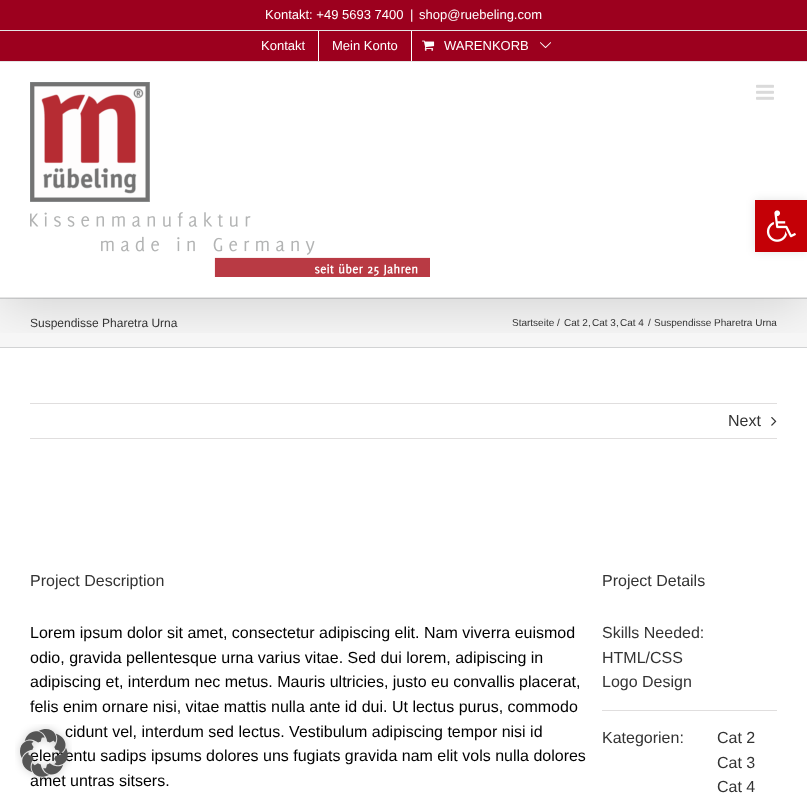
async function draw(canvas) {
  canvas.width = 807
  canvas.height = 797
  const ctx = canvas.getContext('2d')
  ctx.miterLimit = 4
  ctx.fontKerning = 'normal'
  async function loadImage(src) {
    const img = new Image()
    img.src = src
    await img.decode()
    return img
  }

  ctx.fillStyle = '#fff'
  ctx.fillRect(0, 0, 807, 797)
  ctx.fillStyle = '#f6f6f6'
  ctx.fillRect(0, 299, 807, 48)
  ctx.fillStyle = '#d2d3d4'
  ctx.fillRect(0, 298, 807, 1)
  ctx.fillRect(0, 347, 807, 1)
  ctx.save()
  ctx.beginPath()
  ctx.rect(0, 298, 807, 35)
  ctx.clip()
  ctx.fillStyle = '#00000024'
  ctx.filter = 'blur(25px)'
  ctx.beginPath()
  ctx.rect(2, 12, 803, 294)
  ctx.fill()
  ctx.filter = 'none'
  ctx.restore()
  ctx.fillStyle = '#9c001e'
  ctx.fillRect(0, 0, 807, 61)
  ctx.fillStyle = '#e5e5e5'
  ctx.fillRect(0, 61, 807, 1)
  ctx.fillRect(0, 30, 807, 1)
  ctx.font = '13px Liberation Sans'
  ctx.fillStyle = '#fff'
  ctx.fillText('Kontakt: +49 5693 7400', 265, 19)
  ctx.fillText('|', 410, 19)
  ctx.fillText('shop@ruebeling.com', 419, 19)
  ctx.fillText('Kontakt', 261, 50)
  ctx.fillRect(318, 31, 1, 30)
  ctx.fillText('Mein Konto', 332, 50)
  ctx.fillRect(411, 31, 1, 30)
  ctx.drawImage(await loadImage('image0.png'), 422, 40, 13, 11)
  ctx.fillText('WARENKORB', 444, 50)
  ctx.drawImage(await loadImage('image1.png'), 540, 42, 11, 7)
  ctx.fillStyle = '#e5e5e5'
  ctx.fillRect(0, 297, 807, 1)
  ctx.drawImage(await loadImage('image2.png'), 30, 82, 120, 120)
  ctx.drawImage(await loadImage('image3.png'), 30, 212, 400, 65)
  ctx.drawImage(await loadImage('image4.png'), 756, 84, 18, 16)
  ctx.font = '12px Liberation Sans'
  ctx.fillStyle = '#333'
  ctx.fillText('Suspendisse Pharetra Urna', 30, 327)
  ctx.font = '10px Liberation Sans'
  ctx.fillText('Startseite', 512, 326)
  ctx.fillText('/', 557, 326)
  ctx.fillText('Cat 2,', 564, 326)
  ctx.fillText('Cat 3,', 592, 326)
  ctx.fillText('Cat 4', 620, 326)
  ctx.fillText('/', 648, 326)
  ctx.fillText('Suspendisse Pharetra Urna', 654, 326)
  ctx.fillStyle = '#e0dede'
  ctx.fillRect(30, 403, 747, 1)
  ctx.fillRect(30, 438, 747, 1)
  ctx.font = '16px Liberation Sans'
  ctx.fillStyle = '#333'
  ctx.fillText('Next', 728, 426)
  ctx.drawImage(await loadImage('image5.png'), 771, 417, 6, 9)
  ctx.fillText('Project Description', 30, 586)
  ctx.fillStyle = '#000'
  ctx.fillText('Lorem ipsum dolor sit amet, consectetur adipiscing elit. Nam viverra euismod', 30, 638)
  ctx.fillText('odio, gravida pellentesque urna varius vitae. Sed dui lorem, adipiscing in', 30, 663)
  ctx.fillText('adipiscing et, interdum nec metus. Mauris ultricies, justo eu convallis placerat,', 30, 687)
  ctx.fillText('felis enim ornare nisi, vitae mattis nulla ante id dui. Ut lectus purus, commodo', 30, 712)
  ctx.fillText('cidunt vel, interdum sed lectus. Vestibulum adipiscing tempor nisi id', 65, 737)
  ctx.fillText('elementu sadips ipsums dolores uns fugiats gravida nam elit vols nulla dolores', 30, 761)
  ctx.fillText('amet untras sitsers.', 30, 786)
  ctx.fillStyle = '#333'
  ctx.fillText('Project Details', 602, 586)
  ctx.fillStyle = '#e0dede'
  ctx.fillRect(602, 710, 175, 1)
  ctx.fillStyle = '#333'
  ctx.fillText('Skills Needed:', 602, 638)
  ctx.fillText('HTML/CSS', 602, 663)
  ctx.fillText('Logo Design', 602, 687)
  ctx.fillText('Kategorien:', 602, 743)
  ctx.fillText('Cat 2', 717, 743)
  ctx.fillText('Cat 3', 717, 768)
  ctx.fillText('Cat 4', 717, 792)
  ctx.fillStyle = '#0000001a'
  ctx.filter = 'blur(5px)'
  ctx.beginPath()
  ctx.rect(755, 200, 52, 52)
  ctx.fill()
  ctx.filter = 'none'
  ctx.fillStyle = '#c40006'
  ctx.fillRect(755, 200, 52, 52)
  ctx.drawImage(await loadImage('image6.png'), 766, 210, 30, 32)
  ctx.drawImage(await loadImage('image7.png'), 15, 724, 57, 57)
}

draw(document.querySelector('canvas'))
